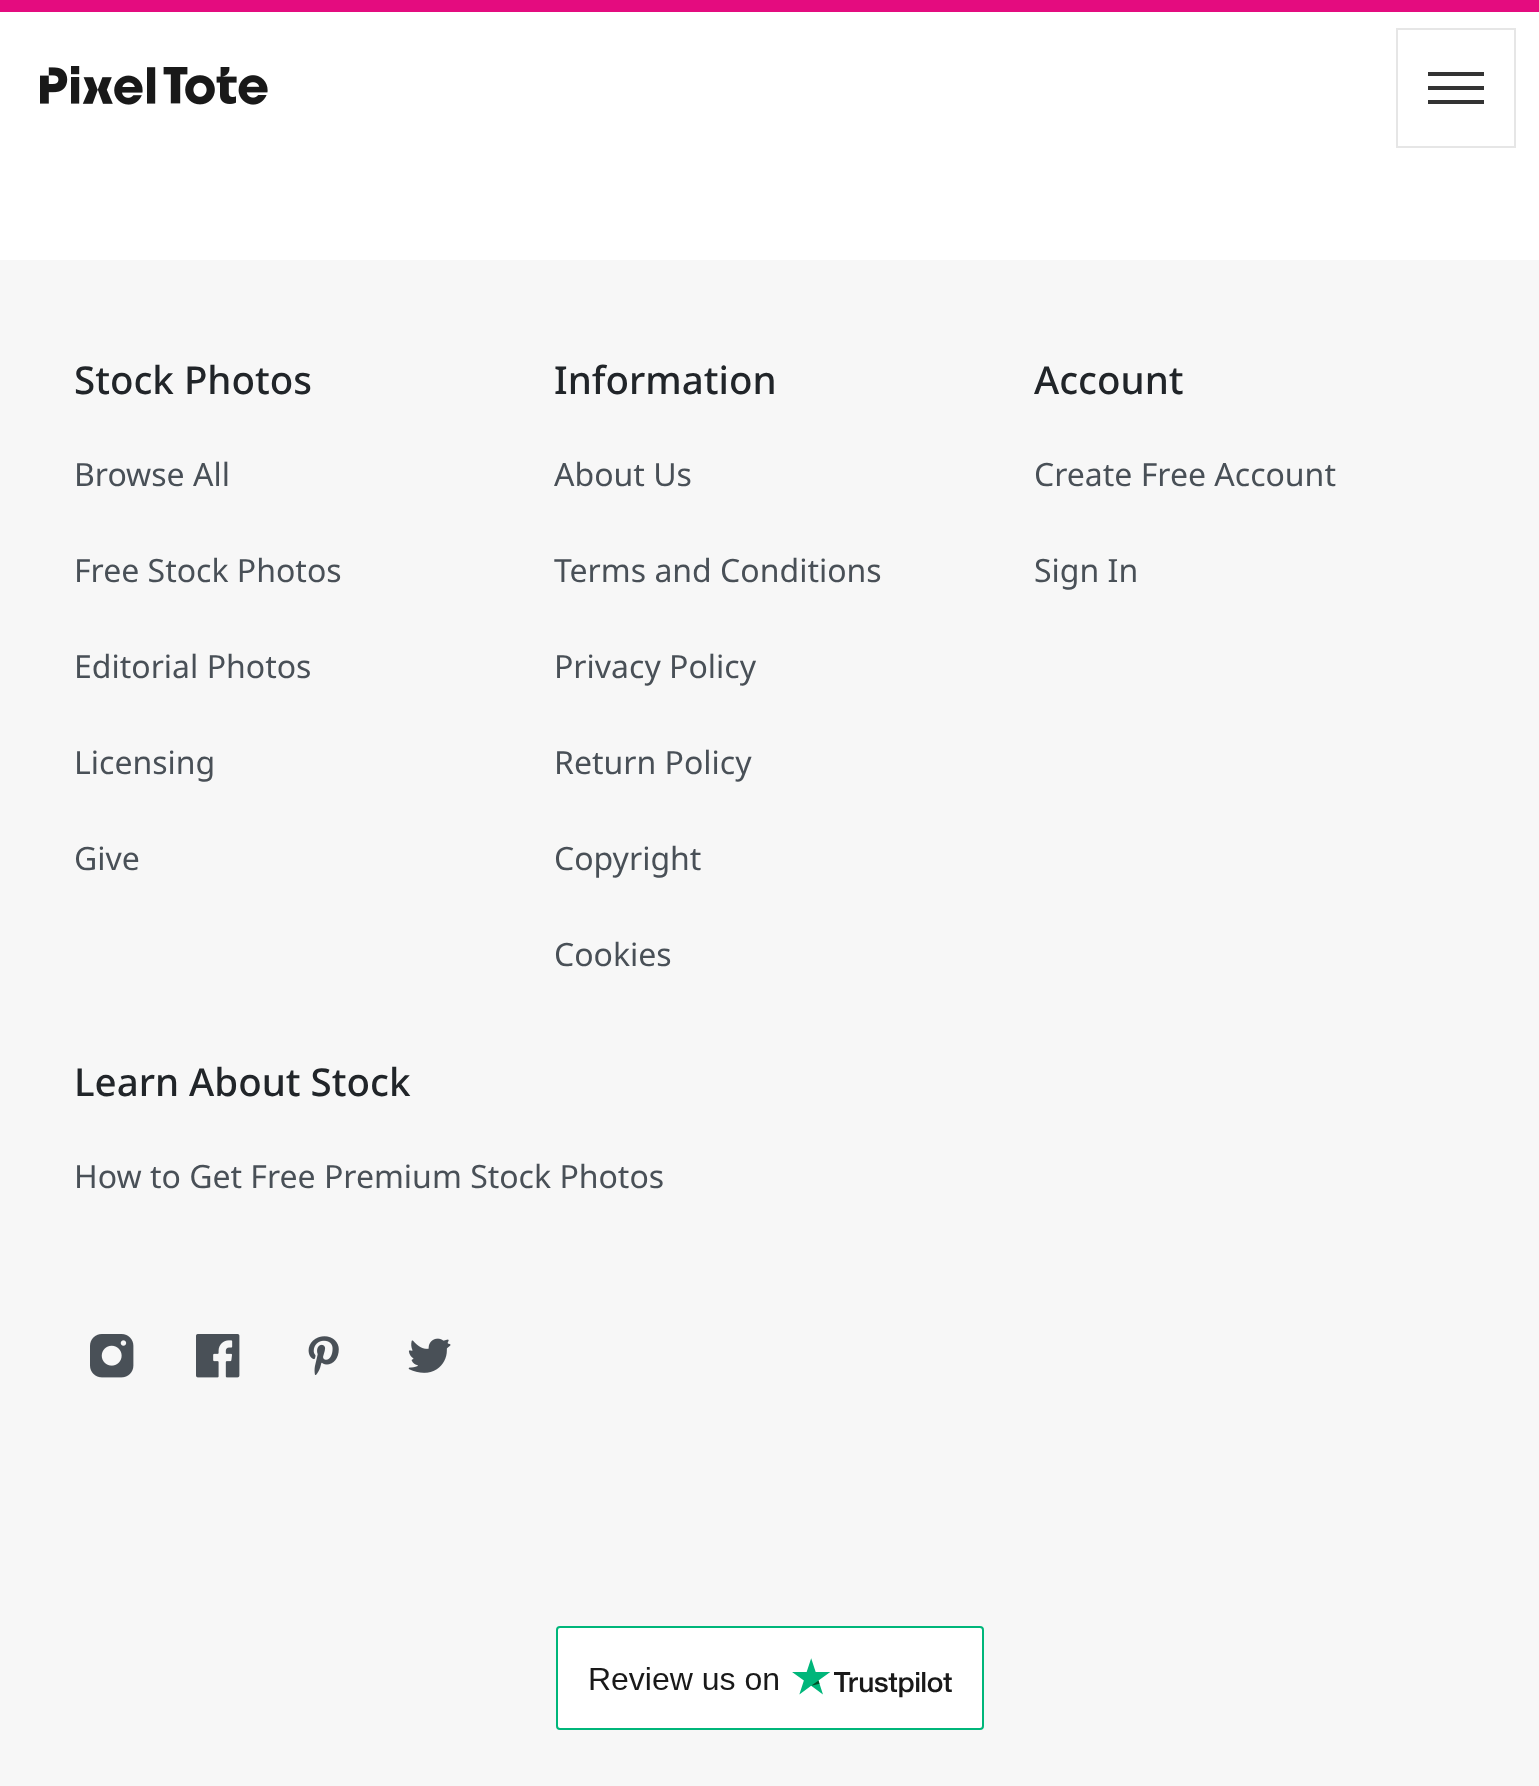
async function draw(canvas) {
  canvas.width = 1539
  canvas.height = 1786
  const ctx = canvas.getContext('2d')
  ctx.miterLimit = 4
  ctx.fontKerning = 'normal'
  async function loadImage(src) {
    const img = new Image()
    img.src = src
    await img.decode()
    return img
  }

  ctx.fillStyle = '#fff'
  ctx.fillRect(0, 0, 1539, 1786)
  ctx.fillStyle = '#e40c7f'
  ctx.fillRect(0, 0, 1539, 12)
  ctx.drawImage(await loadImage('image0.png'), 40, 66, 228, 39)
  ctx.strokeStyle = '#e6e6e6'
  ctx.lineWidth = 2
  ctx.strokeRect(1397, 29, 118, 118)
  ctx.fillStyle = '#333'
  ctx.fillRect(1428, 72, 56, 4)
  ctx.fillRect(1428, 86, 56, 4)
  ctx.fillRect(1428, 100, 56, 4)
  ctx.fillStyle = '#f7f7f7'
  ctx.fillRect(0, 260, 1539, 1526)
  ctx.font = '500 38.5px Noto Sans'
  ctx.fillStyle = '#212529'
  ctx.fillText('Stock Photos', 74, 394)
  ctx.font = '32px Noto Sans'
  ctx.fillStyle = '#495057'
  ctx.fillText('Browse All', 74, 486)
  ctx.fillText('Free Stock Photos', 74, 582)
  ctx.fillText('Editorial Photos', 74, 678)
  ctx.fillText('Licensing', 74, 774)
  ctx.fillText('Give', 74, 870)
  ctx.font = '500 38.5px Noto Sans'
  ctx.fillStyle = '#212529'
  ctx.fillText('Information', 554, 394)
  ctx.font = '32px Noto Sans'
  ctx.fillStyle = '#495057'
  ctx.fillText('About Us', 554, 486)
  ctx.fillText('Terms and Conditions', 554, 582)
  ctx.fillText('Privacy Policy', 554, 678)
  ctx.fillText('Return Policy', 554, 774)
  ctx.fillText('Copyright', 554, 870)
  ctx.fillText('Cookies', 554, 966)
  ctx.font = '500 38.5px Noto Sans'
  ctx.fillStyle = '#212529'
  ctx.fillText('Account', 1034, 394)
  ctx.font = '32px Noto Sans'
  ctx.fillStyle = '#495057'
  ctx.fillText('Create Free Account', 1034, 486)
  ctx.fillText('Sign In', 1034, 582)
  ctx.font = '500 38.5px Noto Sans'
  ctx.fillStyle = '#212529'
  ctx.fillText('Learn About Stock', 74, 1096)
  ctx.font = '32px Noto Sans'
  ctx.fillStyle = '#495057'
  ctx.fillText('How to Get Free Premium Stock Photos', 74, 1188)
  ctx.drawImage(await loadImage('image1.png'), 90, 1334, 44, 44)
  ctx.drawImage(await loadImage('image2.png'), 196, 1334, 44, 44)
  ctx.drawImage(await loadImage('image3.png'), 308, 1336, 31, 39)
  ctx.drawImage(await loadImage('image4.png'), 408, 1338, 43, 35)
  ctx.drawImage(await loadImage('image5.png'), 556, 1626, 428, 104)
}

draw(document.querySelector('canvas'))
